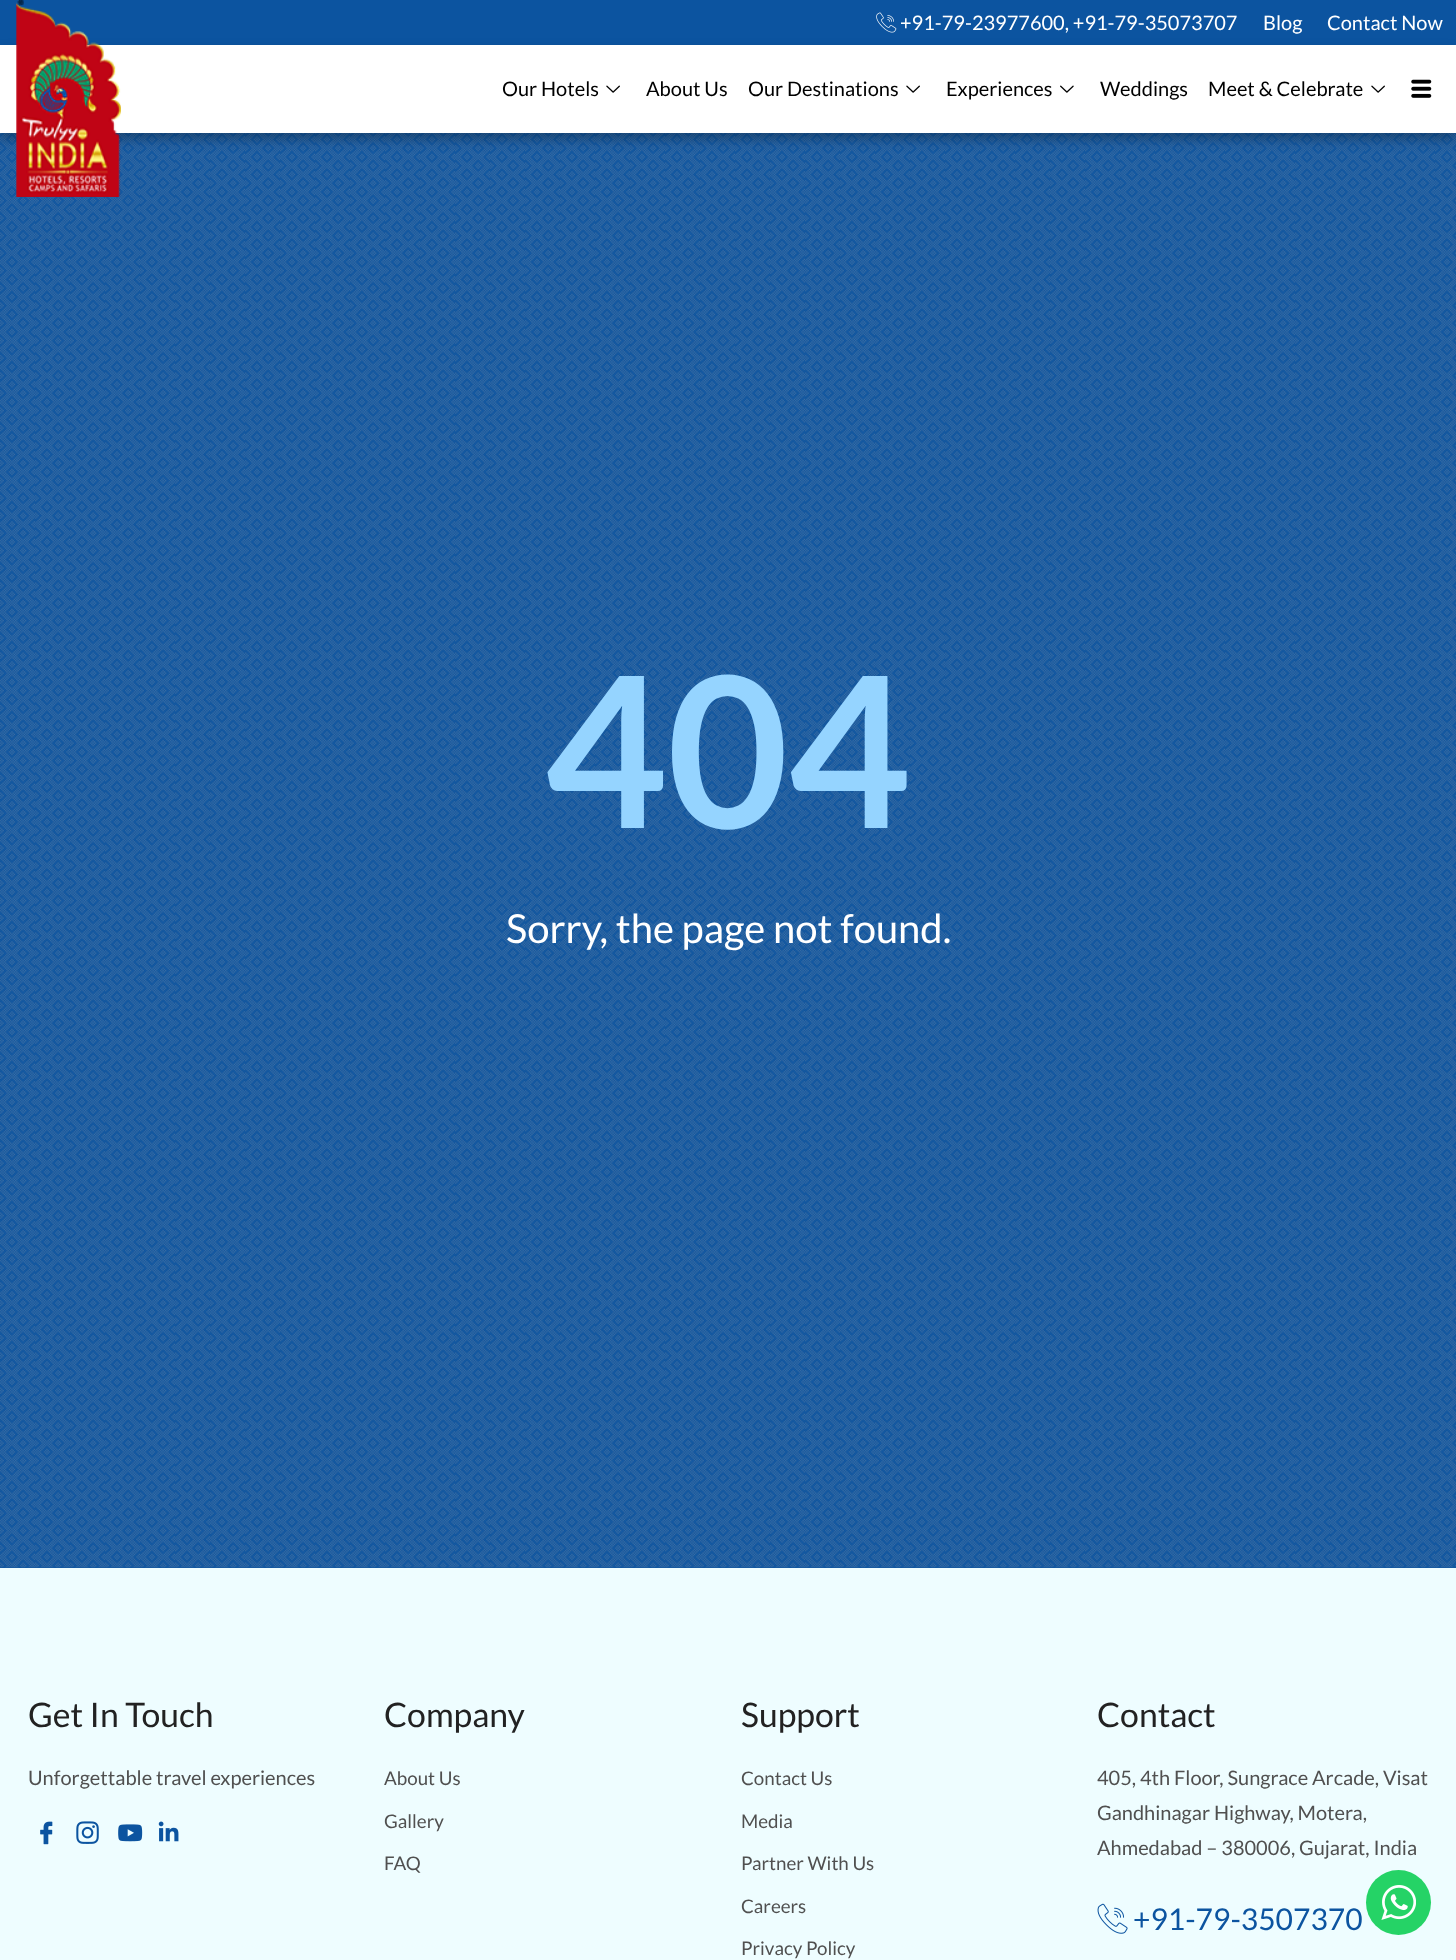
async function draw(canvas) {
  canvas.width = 1456
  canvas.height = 1960
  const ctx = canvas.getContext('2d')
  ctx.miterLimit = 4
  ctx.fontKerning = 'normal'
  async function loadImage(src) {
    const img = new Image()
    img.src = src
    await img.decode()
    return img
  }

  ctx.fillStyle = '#0c54a0'
  ctx.fillRect(0, 0, 1456, 1960)
  ctx.drawImage(await loadImage('image0.png'), 876, 12, 21, 21)
  ctx.font = '20px Lato'
  ctx.fillStyle = '#fff'
  ctx.fillText('+91-79-23977600, +91-79-35073707', 900, 30)
  ctx.fillText('Blog', 1263, 30)
  ctx.fillText('Contact Now', 1327, 30)
  ctx.drawImage(await loadImage('image5.png'), 0, 133, 1456, 1435)
  ctx.fillStyle = '#00000047'
  ctx.filter = 'blur(6px)'
  ctx.beginPath()
  ctx.rect(0, 51, 1456, 88)
  ctx.fill()
  ctx.filter = 'none'
  ctx.fillStyle = '#fff'
  ctx.fillRect(0, 45, 1456, 88)
  ctx.drawImage(await loadImage('image1.png'), 16, 0, 105, 197)
  ctx.fillStyle = '#000'
  ctx.fillText('Our Hotels', 502, 96)
  ctx.drawImage(await loadImage('image2.png'), 606, 85, 14, 8)
  ctx.fillText('About Us', 646, 96)
  ctx.fillText('Our Destinations', 748, 96)
  ctx.drawImage(await loadImage('image2.png'), 906, 85, 14, 8)
  ctx.fillText('Experiences', 946, 96)
  ctx.drawImage(await loadImage('image3.png'), 1060, 85, 14, 8)
  ctx.fillText('Weddings', 1100, 96)
  ctx.fillText('Meet & Celebrate', 1208, 96)
  ctx.drawImage(await loadImage('image2.png'), 1371, 85, 14, 8)
  ctx.drawImage(await loadImage('image4.png'), 1411, 79, 21, 19)
  ctx.font = 'bold 210px Lato'
  ctx.fillStyle = '#95d4ff'
  ctx.fillText('404', 545, 828)
  ctx.font = '40px Lato'
  ctx.fillStyle = '#fff'
  ctx.fillText('Sorry, the page not found.', 506, 943)
  ctx.fillStyle = '#eefdff'
  ctx.fillRect(0, 1568, 1456, 392)
  ctx.font = '33.75px Lato'
  ctx.fillStyle = '#222'
  ctx.fillText('Get In Touch', 28, 1727)
  ctx.font = '20px Lato'
  ctx.fillStyle = '#505050'
  ctx.fillText('Unforgettable travel experiences', 28, 1785)
  ctx.drawImage(await loadImage('image6.png'), 40, 1821, 13, 24)
  ctx.drawImage(await loadImage('image7.png'), 76, 1821, 23, 23)
  ctx.drawImage(await loadImage('image8.png'), 118, 1824, 25, 18)
  ctx.drawImage(await loadImage('image9.png'), 158, 1821, 21, 21)
  ctx.font = '33.75px Lato'
  ctx.fillStyle = '#222'
  ctx.fillText('Company', 384, 1727)
  ctx.font = '18.75px Lato'
  ctx.fillStyle = '#505050'
  ctx.fillText('About Us', 384, 1785)
  ctx.fillText('Gallery', 384, 1828)
  ctx.fillText('FAQ', 384, 1870)
  ctx.font = '33.75px Lato'
  ctx.fillStyle = '#222'
  ctx.fillText('Support', 741, 1727)
  ctx.font = '18.75px Lato'
  ctx.fillStyle = '#505050'
  ctx.fillText('Contact Us', 741, 1785)
  ctx.fillText('Media', 741, 1828)
  ctx.fillText('Partner With Us', 741, 1870)
  ctx.fillText('Careers', 741, 1913)
  ctx.fillText('Privacy Policy', 741, 1955)
  ctx.font = '33.75px Lato'
  ctx.fillStyle = '#222'
  ctx.fillText('Contact', 1097, 1727)
  ctx.font = '20px Lato'
  ctx.fillStyle = '#505050'
  ctx.fillText('405, 4th Floor, Sungrace Arcade, Visat', 1097, 1785)
  ctx.fillText('Gandhinagar Highway, Motera,', 1097, 1820)
  ctx.fillText('Ahmedabad – 380006, Gujarat, India', 1097, 1855)
  ctx.drawImage(await loadImage('image10.png'), 1097, 1903, 31, 31)
  ctx.font = '30px Lato'
  ctx.fillStyle = '#0c54a0'
  ctx.fillText('+91-79-3507370', 1133, 1930)
  ctx.fillStyle = '#25d366'
  ctx.beginPath()
  ctx.arc(1398.5, 1902.5, 32.5, 0, 2 * Math.PI)
  ctx.fill()
  ctx.drawImage(await loadImage('image11.png'), 1381, 1885, 35, 35)
}

draw(document.querySelector('canvas'))
